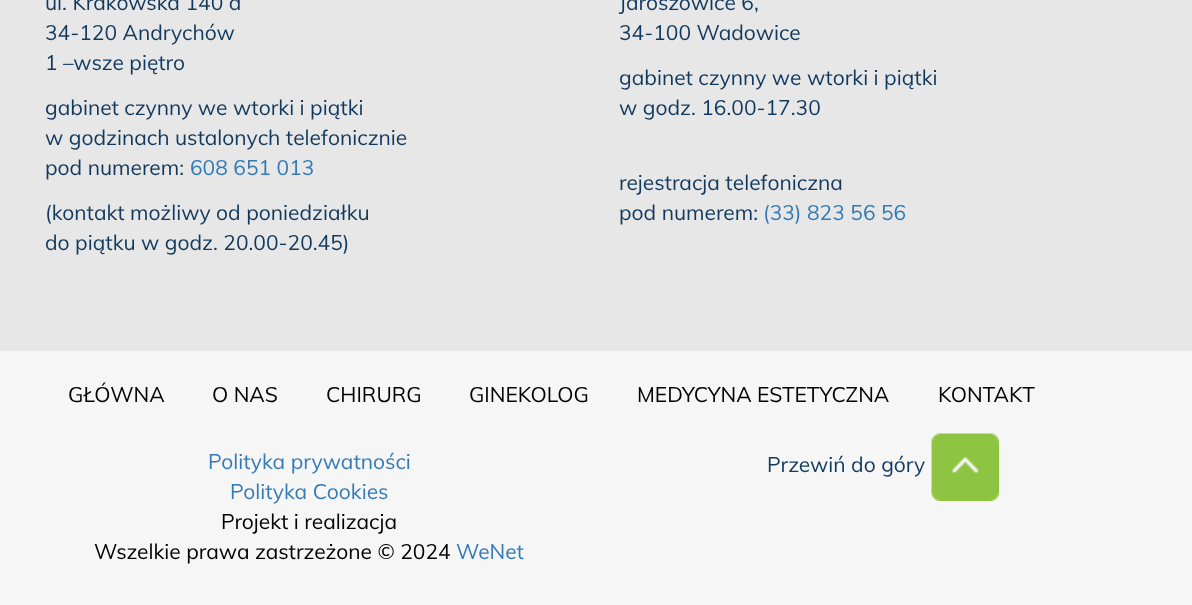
async function draw(canvas) {
  canvas.width = 1192
  canvas.height = 605
  const ctx = canvas.getContext('2d')
  ctx.miterLimit = 4
  ctx.fontKerning = 'normal'
  async function loadImage(src) {
    const img = new Image()
    img.src = src
    await img.decode()
    return img
  }

  ctx.fillStyle = '#f6f6f6'
  ctx.fillRect(0, 0, 1192, 605)
  ctx.fillStyle = '#e7e7e7'
  ctx.fillRect(0, 0, 1192, 351)
  ctx.font = '21px muli'
  ctx.fillStyle = '#11395d'
  ctx.fillText('ul. Krakowska 140 a', 45, 10)
  ctx.fillText('34-120 Andrychów', 45, 40)
  ctx.fillText('1 –wsze piętro', 45, 70)
  ctx.fillText('gabinet czynny we wtorki i piątki', 45, 115)
  ctx.fillText('w godzinach ustalonych telefonicznie', 45, 145)
  ctx.fillText('pod numerem:', 45, 175)
  ctx.fillStyle = '#337ab7'
  ctx.fillText('608 651 013', 190, 175)
  ctx.fillStyle = '#11395d'
  ctx.fillText('(kontakt możliwy od poniedziałku', 45, 220)
  ctx.fillText('do piątku w godz. 20.00-20.45)', 45, 250)
  ctx.fillText('Jaroszowice 6,', 619, 10)
  ctx.fillText('34-100 Wadowice', 619, 40)
  ctx.fillText('gabinet czynny we wtorki i piątki', 619, 85)
  ctx.fillText('w godz. 16.00-17.30', 619, 115)
  ctx.fillText('rejestracja telefoniczna', 619, 190)
  ctx.fillText('pod numerem:', 619, 220)
  ctx.fillStyle = '#337ab7'
  ctx.fillText('(33) 823 56 56', 763, 220)
  ctx.fillStyle = '#000'
  ctx.fillText('GŁÓWNA', 68, 402)
  ctx.fillText('O NAS', 212, 402)
  ctx.fillText('CHIRURG', 326, 402)
  ctx.fillText('GINEKOLOG', 469, 402)
  ctx.fillText('MEDYCYNA ESTETYCZNA', 637, 402)
  ctx.fillText('KONTAKT', 938, 402)
  ctx.fillStyle = '#337ab7'
  ctx.fillText('Polityka prywatności', 208, 469)
  ctx.fillText('Polityka Cookies', 230, 499)
  ctx.fillStyle = '#000'
  ctx.fillText('Projekt i realizacja', 221, 529)
  ctx.fillText('Wszelkie prawa zastrzeżone © 2024', 94, 559)
  ctx.fillStyle = '#337ab7'
  ctx.fillText('WeNet', 456, 559)
  ctx.fillStyle = '#11395d'
  ctx.fillText('Przewiń do góry', 767, 472)
  ctx.drawImage(await loadImage('image0.png'), 931, 433, 68, 68)
}

draw(document.querySelector('canvas'))
